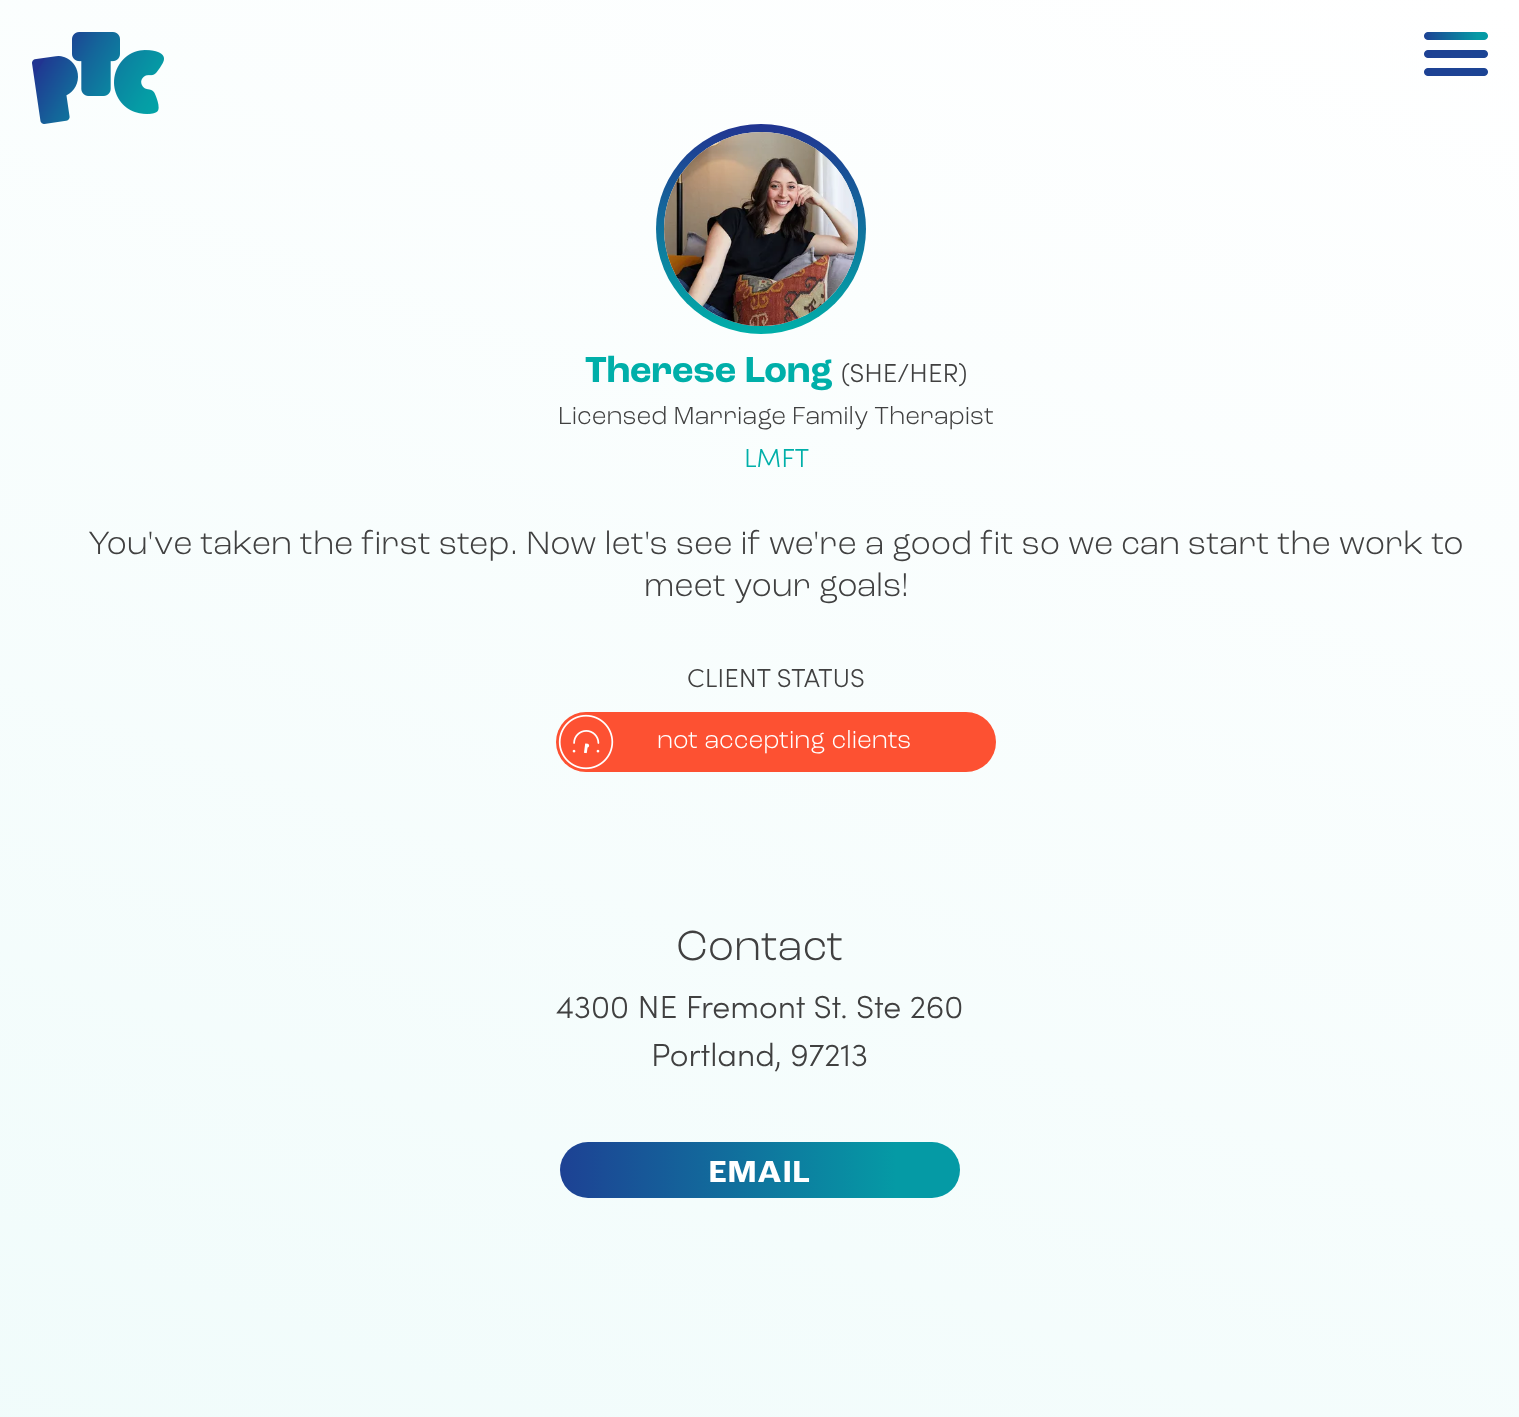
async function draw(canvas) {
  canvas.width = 1519
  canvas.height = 1417
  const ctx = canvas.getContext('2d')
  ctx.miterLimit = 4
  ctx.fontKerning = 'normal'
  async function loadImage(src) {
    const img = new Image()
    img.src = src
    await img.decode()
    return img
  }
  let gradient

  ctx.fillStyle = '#fff'
  ctx.fillRect(0, 0, 1519, 1417)
  gradient = ctx.createLinearGradient(-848, 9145, 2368, 309)
  gradient.addColorStop(0, '#e2f9f7')
  gradient.addColorStop(0.7, '#e9faf9')
  gradient.addColorStop(1, '#fff')
  ctx.fillStyle = gradient
  ctx.fillRect(0, 0, 1519, 1417)
  ctx.drawImage(await loadImage('image0.png'), 32, 32, 132, 92)
  ctx.drawImage(await loadImage('image1.png'), 1424, 32, 64, 44)
  gradient = ctx.createLinearGradient(761, 124, 761, 334)
  gradient.addColorStop(0, '#213491')
  gradient.addColorStop(1, '#00afa9')
  ctx.fillStyle = gradient
  ctx.beginPath()
  ctx.arc(761, 229, 105, 0, 2 * Math.PI)
  ctx.fill()
  ctx.fillStyle = '#fff'
  ctx.beginPath()
  ctx.arc(761, 229, 97, 0, 2 * Math.PI)
  ctx.fill()
  ctx.drawImage(await loadImage('image2.png'), 664, 132, 194, 194)
  ctx.font = 'bold 38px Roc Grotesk'
  ctx.fillStyle = '#00afa9'
  ctx.fillText('Therese Long', 585, 382)
  ctx.font = '300 26px Sofia'
  ctx.fillStyle = '#404040'
  ctx.fillText('(SHE/HER)', 841, 382)
  ctx.font = '300 26px Roc Grotesk'
  ctx.fillText('Licensed Marriage Family Therapist', 558, 424)
  ctx.font = '300 26px Sofia'
  ctx.fillStyle = '#00afa9'
  ctx.fillText('LMFT', 744, 467)
  ctx.font = '300 34px Roc Grotesk'
  ctx.fillStyle = '#404040'
  ctx.fillText('You\'ve taken the first step. Now let\'s see if we\'re a good fit so we can start the work to', 88, 554)
  ctx.fillText('meet your goals!', 644, 596)
  ctx.font = '300 26px Sofia'
  ctx.fillText('CLIENT STATUS', 687, 687)
  ctx.fillStyle = '#fd5132'
  ctx.beginPath()
  ctx.roundRect(556, 712, 440, 60, 30)
  ctx.fill()
  ctx.drawImage(await loadImage('image3.png'), 558, 714, 56, 56)
  ctx.font = '300 26px Roc Grotesk'
  ctx.fillStyle = '#fff'
  ctx.fillText('not accepting clients', 657, 748)
  ctx.font = '300 44px Roc Grotesk'
  ctx.fillStyle = '#404040'
  ctx.fillText('Contact', 676, 960)
  ctx.font = '300 32px Sofia'
  ctx.fillText('4300 NE Fremont St. Ste 260', 556, 1018)
  ctx.fillText('Portland, 97213', 651, 1066)
  gradient = ctx.createLinearGradient(960, 1170, 506, 1170)
  gradient.addColorStop(0.14, '#059aa5')
  gradient.addColorStop(1, '#213391')
  ctx.fillStyle = gradient
  ctx.beginPath()
  ctx.roundRect(560, 1142, 400, 56, 28)
  ctx.fill()
  ctx.letterSpacing = '1.5px'
  ctx.font = 'bold 32px Roc Grotesk'
  ctx.fillStyle = '#fff'
  ctx.fillText('EMAIL', 709, 1182)
}

draw(document.querySelector('canvas'))
